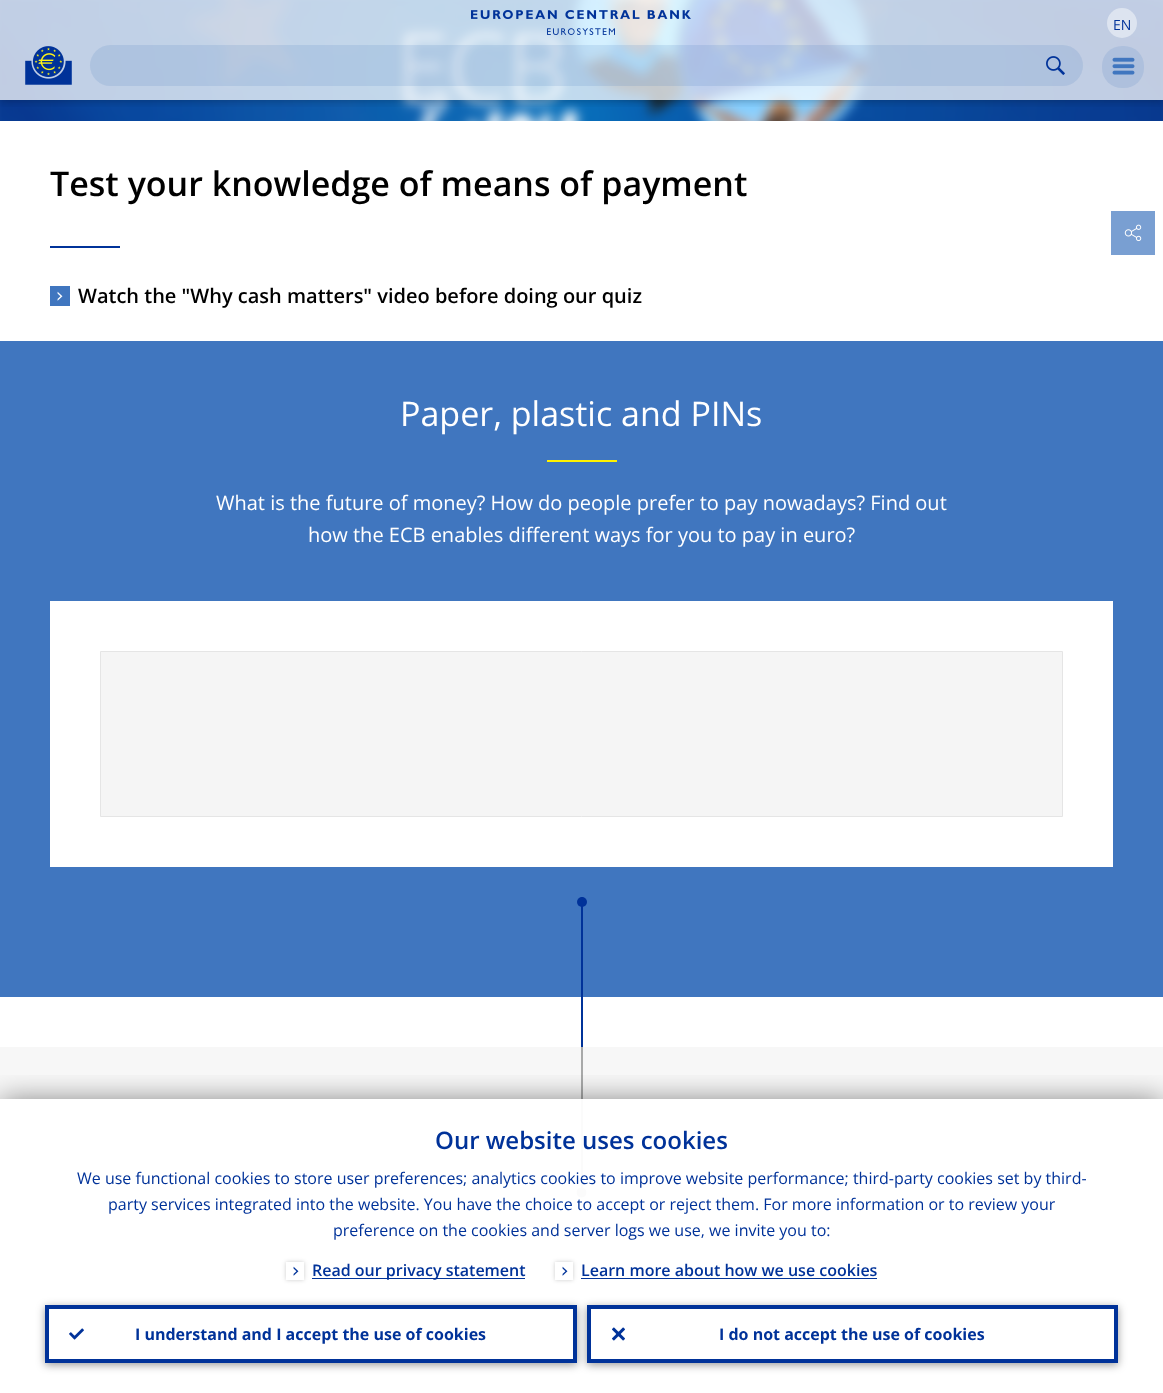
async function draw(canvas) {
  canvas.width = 1163
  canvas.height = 1393
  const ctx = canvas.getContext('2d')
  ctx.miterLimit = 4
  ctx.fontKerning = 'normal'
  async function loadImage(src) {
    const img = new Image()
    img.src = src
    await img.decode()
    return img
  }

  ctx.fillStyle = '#fff'
  ctx.fillRect(0, 0, 1163, 1393)
  ctx.drawImage(await loadImage('image4.png'), 0, 0, 1163, 121)
  ctx.save()
  ctx.beginPath()
  ctx.rect(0, 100, 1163, 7)
  ctx.clip()
  ctx.fillStyle = '#0000004d'
  ctx.filter = 'blur(5px)'
  ctx.beginPath()
  ctx.rect(0, 0, 1163, 100)
  ctx.fill()
  ctx.filter = 'none'
  ctx.restore()
  ctx.fillStyle = '#ffffffbf'
  ctx.fillRect(0, 0, 1163, 100)
  ctx.drawImage(await loadImage('image0.png'), 471, 10, 220, 25)
  ctx.fillStyle = '#dde4f0'
  ctx.beginPath()
  ctx.arc(1122, 23, 15, 0, 2 * Math.PI)
  ctx.fill()
  ctx.font = '14px Open Sans'
  ctx.fillStyle = '#003299'
  ctx.fillText('EN', 1113, 30)
  ctx.drawImage(await loadImage('image1.png'), 25, 46, 47, 39)
  ctx.fillStyle = '#4076bd26'
  ctx.beginPath()
  ctx.roundRect(90, 45, 993, 41, 20.5)
  ctx.fill()
  ctx.drawImage(await loadImage('image2.png'), 1046, 56, 19, 19)
  ctx.fillStyle = '#aec0dd'
  ctx.beginPath()
  ctx.roundRect(1102, 46, 42, 42, 20)
  ctx.fill()
  ctx.drawImage(await loadImage('image3.png'), 1112, 57, 23, 18)
  ctx.font = '600 34px Open Sans'
  ctx.fillStyle = '#000'
  ctx.fillText('Test your knowledge of means of payment', 50, 196)
  ctx.fillStyle = '#003299'
  ctx.fillRect(50, 246, 70, 2)
  ctx.fillStyle = '#4076bf'
  ctx.fillRect(50, 286, 20, 20)
  ctx.drawImage(await loadImage('image5.png'), 57, 291, 6, 10)
  ctx.font = '600 20px Open Sans'
  ctx.fillStyle = '#000'
  ctx.fillText('Watch the "Why cash matters" video before doing our quiz', 78, 303)
  ctx.fillStyle = '#4076bf'
  ctx.fillRect(0, 341, 1163, 656)
  ctx.font = '34px Open Sans'
  ctx.fillStyle = '#fff'
  ctx.fillText('Paper, plastic and PINs', 400, 426)
  ctx.fillStyle = '#fff200'
  ctx.fillRect(547, 460, 70, 2)
  ctx.font = '20px Open Sans'
  ctx.fillStyle = '#fff'
  ctx.fillText('What is the future of money? How do people prefer to pay nowadays? Find out', 216, 510)
  ctx.fillText('how the ECB enables different ways for you to pay in euro?', 308, 542)
  ctx.fillRect(50, 601, 1063, 266)
  ctx.fillStyle = '#f5f5f5'
  ctx.beginPath()
  ctx.rect(100.5, 651.5, 962, 165)
  ctx.fill()
  ctx.strokeStyle = '#e5e5e5'
  ctx.stroke()
  ctx.fillStyle = '#003299'
  ctx.fillRect(581, 897, 2, 150)
  ctx.beginPath()
  ctx.arc(582, 902, 5, 0, 2 * Math.PI)
  ctx.fill()
  ctx.fillStyle = '#f7f7f7'
  ctx.fillRect(0, 1047, 1163, 52)
  ctx.fillStyle = '#a8a9a9'
  ctx.fillRect(581, 1047, 2, 52)
  ctx.fillStyle = '#fbfbfb'
  ctx.fillRect(581, 1099, 2, 89)
  ctx.beginPath()
  ctx.moveTo(581.5, 1197.5)
  ctx.bezierCurveTo(588, 1197.5, 588, 1187.5, 581.5, 1187.5)
  ctx.bezierCurveTo(575, 1187.5, 575, 1197.5, 581.5, 1197.5)
  ctx.closePath()
  ctx.fill()
  ctx.fillStyle = '#799fd2'
  ctx.fillRect(1111, 211, 44, 44)
  ctx.drawImage(await loadImage('image6.png'), 1124, 224, 18, 18)
  ctx.save()
  ctx.beginPath()
  ctx.rect(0, 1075, 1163, 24)
  ctx.clip()
  ctx.fillStyle = '#00000080'
  ctx.filter = 'blur(15px)'
  ctx.beginPath()
  ctx.rect(0, 1101, 1163, 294)
  ctx.fill()
  ctx.filter = 'none'
  ctx.restore()
  ctx.font = '600 24px Open Sans'
  ctx.fillStyle = '#003299'
  ctx.fillText('Our website uses cookies', 435, 1149)
  ctx.font = '16px Open Sans'
  ctx.fillText('We use functional cookies to store user preferences; analytics cookies to improve website performance; third-party cookies set by third-', 77, 1184)
  ctx.fillText('party services integrated into the website. You have the choice to accept or reject them. For more information or to review your', 108, 1210)
  ctx.fillText('preference on the cookies and server logs we use, we invite you to:', 333, 1236)
  ctx.save()
  ctx.beginPath()
  ctx.moveTo(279, 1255)
  ctx.lineTo(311, 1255)
  ctx.lineTo(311, 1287)
  ctx.lineTo(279, 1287)
  ctx.closePath()
  ctx.moveTo(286, 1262)
  ctx.lineTo(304, 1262)
  ctx.lineTo(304, 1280)
  ctx.lineTo(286, 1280)
  ctx.closePath()
  ctx.clip('evenodd')
  ctx.fillStyle = '#00000033'
  ctx.filter = 'blur(2px)'
  ctx.beginPath()
  ctx.rect(286, 1262, 18, 18)
  ctx.fill()
  ctx.filter = 'none'
  ctx.restore()
  ctx.drawImage(await loadImage('image7.png'), 293, 1266, 6, 10)
  ctx.fillRect(312, 1278, 213, 1)
  ctx.font = '600 16px Open Sans'
  ctx.fillText('Read our privacy statement', 312, 1276)
  ctx.fillStyle = '#00000033'
  ctx.filter = 'blur(2px)'
  ctx.beginPath()
  ctx.rect(555, 1262, 18, 18)
  ctx.fill()
  ctx.filter = 'none'
  ctx.fillStyle = '#fff'
  ctx.fillRect(555, 1262, 18, 18)
  ctx.drawImage(await loadImage('image8.png'), 562, 1266, 6, 10)
  ctx.fillStyle = '#003299'
  ctx.fillText('Learn more about how we use cookies', 581, 1276)
  ctx.fillRect(581, 1278, 296, 1)
  ctx.fillStyle = '#00000066'
  ctx.filter = 'blur(4px)'
  ctx.beginPath()
  ctx.rect(45, 1307, 532, 58)
  ctx.fill()
  ctx.filter = 'none'
  ctx.fillStyle = '#fff'
  ctx.beginPath()
  ctx.rect(47, 1307, 528, 54)
  ctx.fill()
  ctx.strokeStyle = '#003299'
  ctx.lineWidth = 4
  ctx.stroke()
  ctx.drawImage(await loadImage('image9.png'), 69, 1328, 15, 12)
  ctx.font = 'bold 16px Open Sans'
  ctx.fillStyle = '#003299'
  ctx.fillText('I understand and I accept the use of cookies', 135, 1340)
  ctx.fillStyle = '#00000066'
  ctx.filter = 'blur(4px)'
  ctx.beginPath()
  ctx.rect(587, 1307, 531, 58)
  ctx.fill()
  ctx.filter = 'none'
  ctx.fillStyle = '#fff'
  ctx.beginPath()
  ctx.rect(589, 1307, 527, 54)
  ctx.fill()
  ctx.stroke()
  ctx.drawImage(await loadImage('image10.png'), 612, 1327, 13, 14)
  ctx.fillStyle = '#003299'
  ctx.fillText('I do not accept the use of cookies', 719, 1340)
}

draw(document.querySelector('canvas'))
